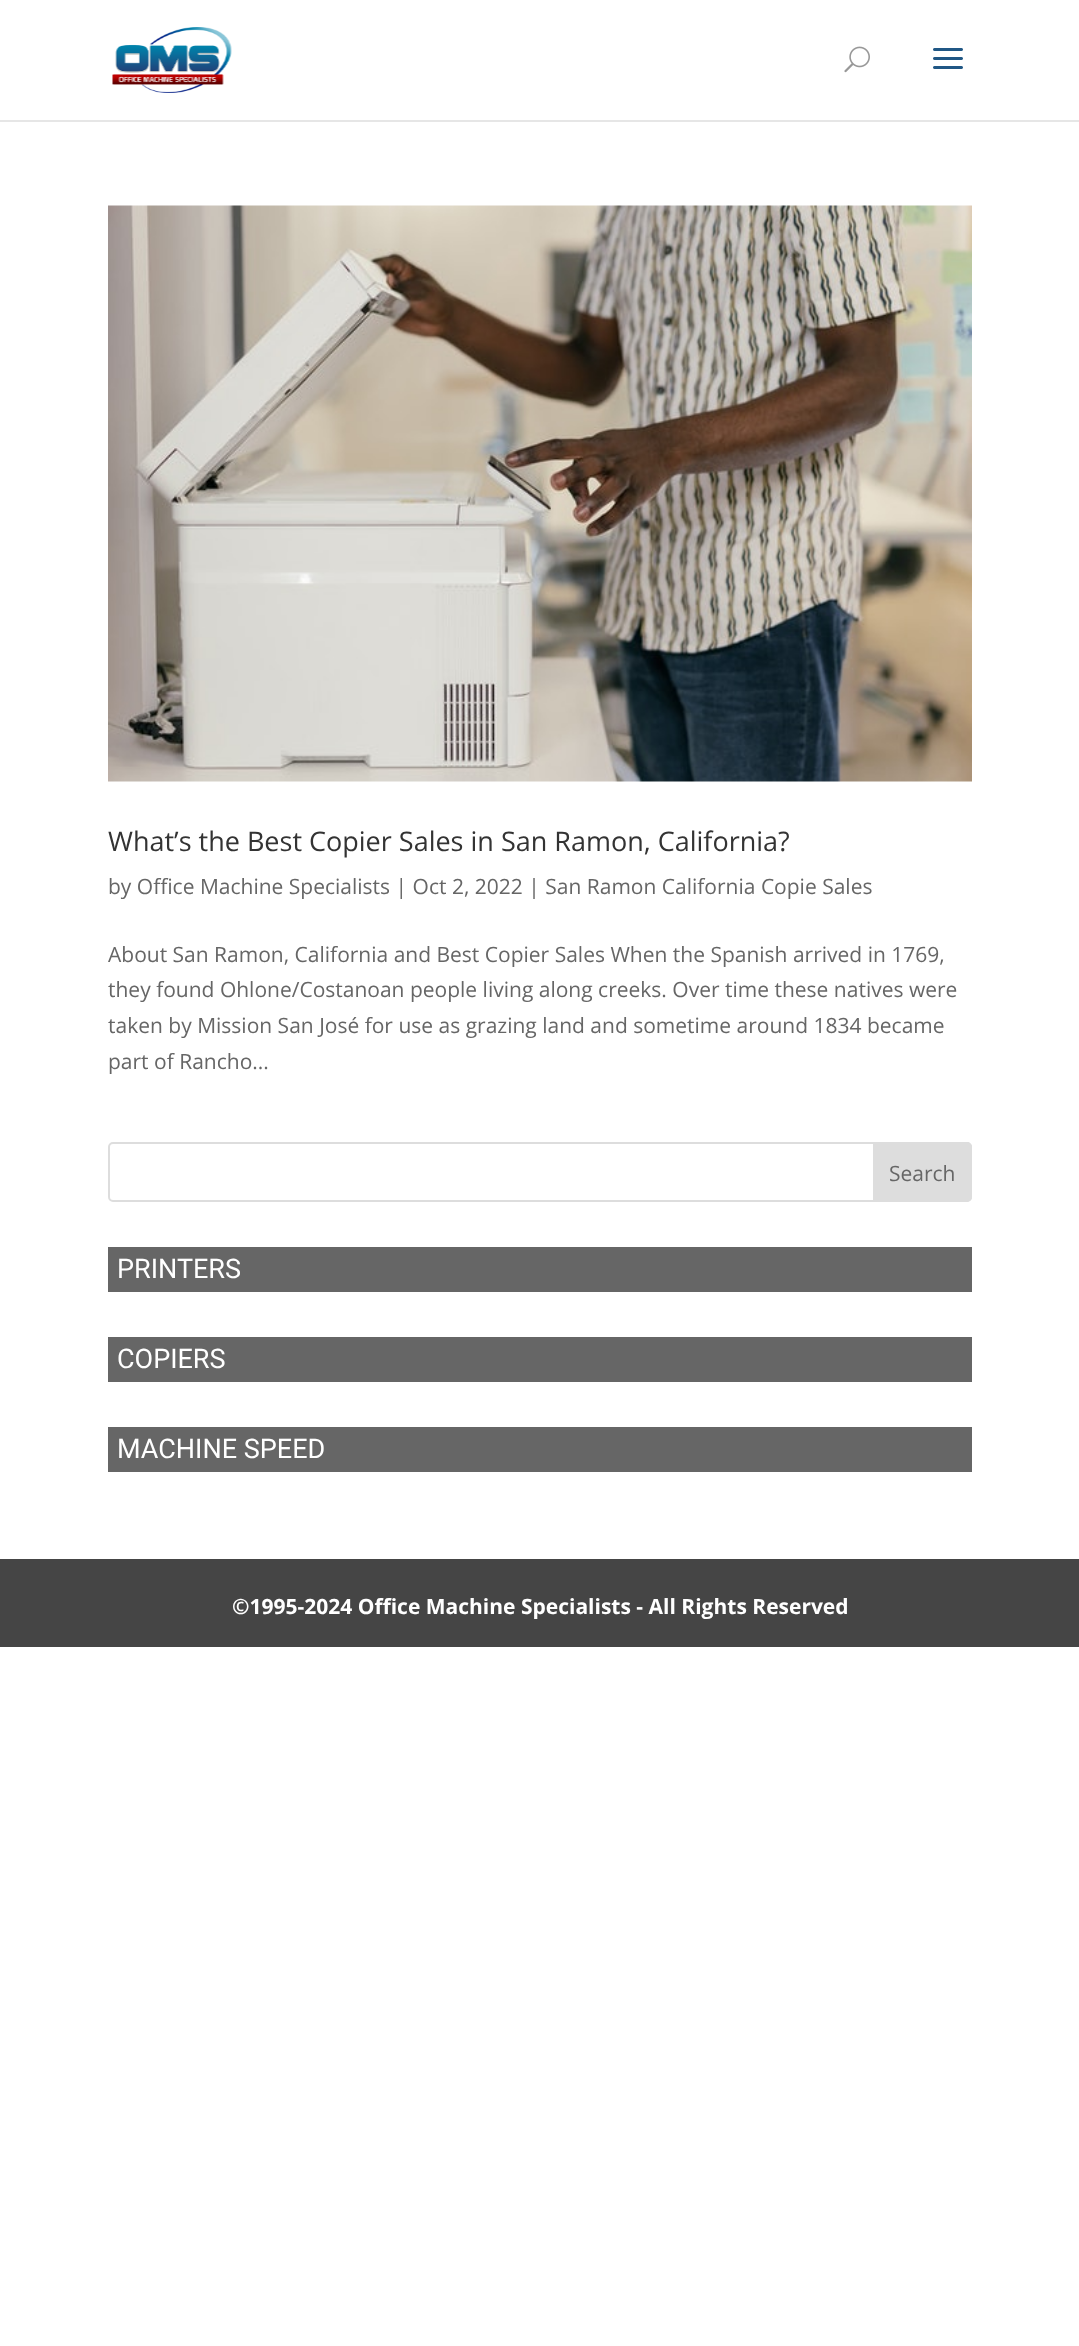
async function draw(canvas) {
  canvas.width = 1079
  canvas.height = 2346
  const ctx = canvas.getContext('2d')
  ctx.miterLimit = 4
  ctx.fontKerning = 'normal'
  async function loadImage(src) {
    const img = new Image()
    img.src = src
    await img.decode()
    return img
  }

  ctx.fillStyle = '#fff'
  ctx.fillRect(0, 0, 1079, 2346)
  ctx.fillStyle = '#e6e6e6'
  ctx.fillRect(0, 120, 1079, 2)
  ctx.drawImage(await loadImage('image0.png'), 112, 27, 120, 66)
  ctx.drawImage(await loadImage('image1.png'), 844, 46, 26, 27)
  ctx.drawImage(await loadImage('image2.png'), 933, 48, 30, 21)
  ctx.drawImage(await loadImage('image3.png'), 108, 205, 864, 577)
  ctx.font = '27px Open Sans'
  ctx.fillStyle = '#333'
  ctx.fillText('What’s the Best Copier Sales in San Ramon, California?', 108, 851)
  ctx.font = '21px Open Sans'
  ctx.fillStyle = '#666'
  ctx.fillText('by Office Machine Specialists | Oct 2, 2022 | San Ramon California Copie Sales', 108, 894)
  ctx.fillText('About San Ramon, California and Best Copier Sales When the Spanish arrived in 1769,', 108, 962)
  ctx.fillText('they found Ohlone/Costanoan people living along creeks. Over time these natives were', 108, 997)
  ctx.fillText('taken by Mission San José for use as grazing land and sometime around 1834 became', 108, 1033)
  ctx.fillText('part of Rancho...', 108, 1069)
  ctx.beginPath()
  ctx.roundRect(109, 1143, 862, 58, 4)
  ctx.strokeStyle = '#ddd'
  ctx.lineWidth = 2
  ctx.stroke()
  ctx.fillStyle = '#ddd'
  ctx.beginPath()
  ctx.roundRect(874, 1143, 97, 58, [0, 4, 4, 0])
  ctx.fill()
  ctx.stroke()
  ctx.fillStyle = '#666'
  ctx.fillText('Search', 889, 1181)
  ctx.fillRect(108, 1247, 864, 45)
  ctx.font = '27px Roboto'
  ctx.fillStyle = '#fff'
  ctx.fillText('PRINTERS', 117, 1278)
  ctx.fillStyle = '#666'
  ctx.fillRect(108, 1337, 864, 45)
  ctx.fillStyle = '#fff'
  ctx.fillText('COPIERS', 117, 1368)
  ctx.fillStyle = '#666'
  ctx.fillRect(108, 1427, 864, 45)
  ctx.fillStyle = '#fff'
  ctx.fillText('MACHINE SPEED', 117, 1458)
  ctx.fillStyle = '#454545'
  ctx.fillRect(0, 1559, 1079, 88)
  ctx.font = 'bold 21px Open Sans'
  ctx.fillStyle = '#fff'
  ctx.fillText('©1995-2024 Office Machine Specialists - All Rights Reserved', 232, 1614)
}

draw(document.querySelector('canvas'))
